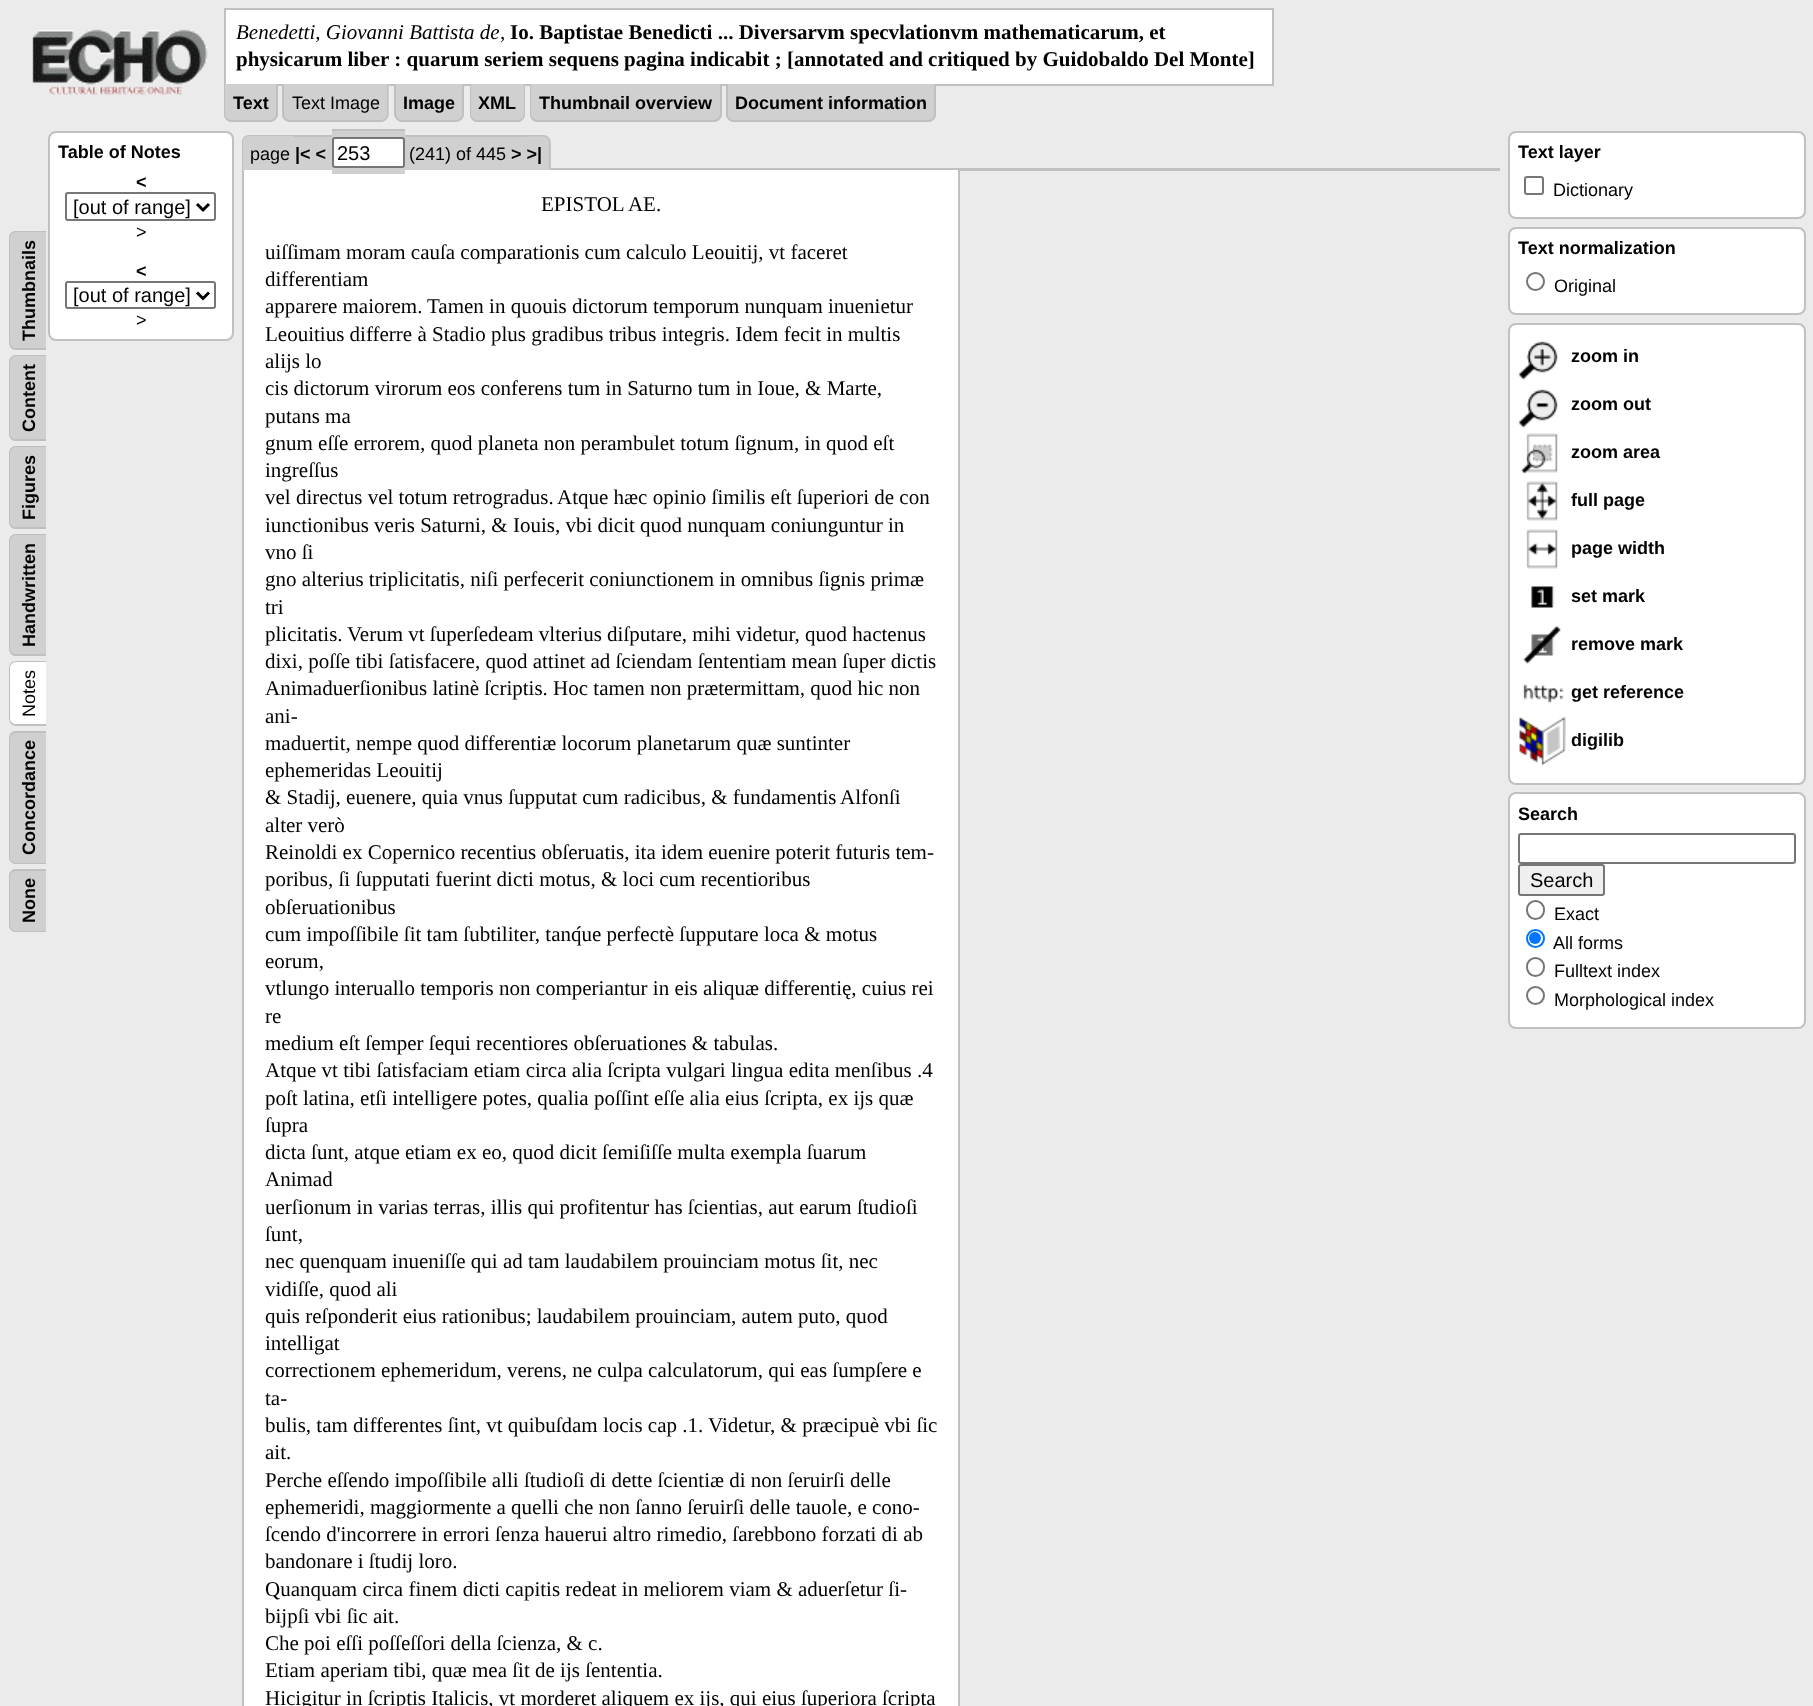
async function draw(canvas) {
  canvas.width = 1813
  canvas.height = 1706
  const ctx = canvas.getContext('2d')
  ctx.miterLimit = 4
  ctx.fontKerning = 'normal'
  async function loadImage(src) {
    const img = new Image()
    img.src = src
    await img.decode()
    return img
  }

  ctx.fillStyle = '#ebebeb'
  ctx.fillRect(0, 0, 1813, 1706)
  ctx.drawImage(await loadImage('image0.png'), 32, 29, 176, 66)
  ctx.fillStyle = '#fff'
  ctx.beginPath()
  ctx.rect(225, 9, 1048, 76)
  ctx.fill()
  ctx.strokeStyle = '#c0c0c0'
  ctx.lineWidth = 2
  ctx.stroke()
  ctx.font = 'italic 21px Liberation Serif'
  ctx.fillStyle = '#000'
  ctx.fillText('Benedetti, Giovanni Battista de', 236, 39)
  ctx.font = '21px Liberation Serif'
  ctx.fillText(',', 500, 39)
  ctx.font = 'bold 21px Liberation Serif'
  ctx.fillText('Io. Baptistae Benedicti ... Diversarvm specvlationvm mathematicarum, et', 510, 39)
  ctx.fillText('physicarum liber : quarum seriem sequens pagina indicabit ; [annotated and critiqued by Guidobaldo Del Monte]', 236, 66)
  ctx.fillStyle = '#d0d0d0'
  ctx.beginPath()
  ctx.roundRect(224, 84, 54, 38, [0, 0, 8, 8])
  ctx.fill()
  ctx.fillStyle = '#c0c0c0'
  ctx.beginPath()
  ctx.moveTo(224, 84)
  ctx.lineTo(278, 84)
  ctx.lineTo(278, 114)
  ctx.bezierCurveTo(278, 118, 274, 122, 270, 122)
  ctx.lineTo(231, 122)
  ctx.bezierCurveTo(227, 122, 224, 118, 224, 114)
  ctx.closePath()
  ctx.moveTo(225, 84)
  ctx.lineTo(276, 84)
  ctx.lineTo(276, 114)
  ctx.bezierCurveTo(276, 117, 273, 120, 270, 120)
  ctx.lineTo(231, 120)
  ctx.bezierCurveTo(228, 120, 225, 117, 225, 114)
  ctx.closePath()
  ctx.fill('evenodd')
  ctx.font = 'bold 18px Liberation Sans'
  ctx.fillStyle = '#000'
  ctx.fillText('Text', 233, 109)
  ctx.fillStyle = '#d0d0d0'
  ctx.beginPath()
  ctx.roundRect(282, 84, 107, 38, [0, 0, 8, 8])
  ctx.fill()
  ctx.fillStyle = '#c0c0c0'
  ctx.beginPath()
  ctx.moveTo(282, 84)
  ctx.lineTo(388, 84)
  ctx.lineTo(388, 114)
  ctx.bezierCurveTo(388, 118, 385, 122, 381, 122)
  ctx.lineTo(290, 122)
  ctx.bezierCurveTo(285, 122, 282, 118, 282, 114)
  ctx.closePath()
  ctx.moveTo(284, 84)
  ctx.lineTo(387, 84)
  ctx.lineTo(387, 114)
  ctx.bezierCurveTo(387, 117, 384, 120, 381, 120)
  ctx.lineTo(290, 120)
  ctx.bezierCurveTo(286, 120, 284, 117, 284, 114)
  ctx.closePath()
  ctx.fill('evenodd')
  ctx.font = '18px Liberation Sans'
  ctx.fillStyle = '#000'
  ctx.fillText('Text Image', 292, 109)
  ctx.fillStyle = '#d0d0d0'
  ctx.beginPath()
  ctx.roundRect(395, 84, 69, 38, [0, 0, 8, 8])
  ctx.fill()
  ctx.fillStyle = '#c0c0c0'
  ctx.beginPath()
  ctx.moveTo(394, 84)
  ctx.lineTo(464, 84)
  ctx.lineTo(464, 114)
  ctx.bezierCurveTo(464, 118, 460, 122, 456, 122)
  ctx.lineTo(402, 122)
  ctx.bezierCurveTo(398, 122, 394, 118, 394, 114)
  ctx.closePath()
  ctx.moveTo(396, 84)
  ctx.lineTo(462, 84)
  ctx.lineTo(462, 114)
  ctx.bezierCurveTo(462, 117, 459, 120, 456, 120)
  ctx.lineTo(402, 120)
  ctx.bezierCurveTo(399, 120, 396, 117, 396, 114)
  ctx.closePath()
  ctx.fill('evenodd')
  ctx.font = 'bold 18px Liberation Sans'
  ctx.fillStyle = '#000'
  ctx.fillText('Image', 403, 109)
  ctx.fillStyle = '#d0d0d0'
  ctx.beginPath()
  ctx.roundRect(470, 84, 55, 38, [0, 0, 8, 8])
  ctx.fill()
  ctx.fillStyle = '#c0c0c0'
  ctx.beginPath()
  ctx.moveTo(470, 84)
  ctx.lineTo(525, 84)
  ctx.lineTo(525, 114)
  ctx.bezierCurveTo(525, 118, 522, 122, 518, 122)
  ctx.lineTo(477, 122)
  ctx.bezierCurveTo(473, 122, 470, 118, 470, 114)
  ctx.closePath()
  ctx.moveTo(471, 84)
  ctx.lineTo(524, 84)
  ctx.lineTo(524, 114)
  ctx.bezierCurveTo(524, 117, 521, 120, 518, 120)
  ctx.lineTo(477, 120)
  ctx.bezierCurveTo(474, 120, 471, 117, 471, 114)
  ctx.closePath()
  ctx.fill('evenodd')
  ctx.fillStyle = '#000'
  ctx.fillText('XML', 478, 109)
  ctx.fillStyle = '#d0d0d0'
  ctx.beginPath()
  ctx.roundRect(530, 84, 192, 38, [0, 0, 8, 8])
  ctx.fill()
  ctx.fillStyle = '#c0c0c0'
  ctx.beginPath()
  ctx.moveTo(530, 84)
  ctx.lineTo(722, 84)
  ctx.lineTo(722, 114)
  ctx.bezierCurveTo(722, 118, 718, 122, 714, 122)
  ctx.lineTo(537, 122)
  ctx.bezierCurveTo(533, 122, 530, 118, 530, 114)
  ctx.closePath()
  ctx.moveTo(531, 84)
  ctx.lineTo(720, 84)
  ctx.lineTo(720, 114)
  ctx.bezierCurveTo(720, 117, 717, 120, 714, 120)
  ctx.lineTo(537, 120)
  ctx.bezierCurveTo(534, 120, 531, 117, 531, 114)
  ctx.closePath()
  ctx.fill('evenodd')
  ctx.fillStyle = '#000'
  ctx.fillText('Thumbnail overview', 539, 109)
  ctx.fillStyle = '#d0d0d0'
  ctx.beginPath()
  ctx.roundRect(726, 84, 210, 38, [0, 0, 8, 8])
  ctx.fill()
  ctx.fillStyle = '#c0c0c0'
  ctx.beginPath()
  ctx.moveTo(726, 84)
  ctx.lineTo(936, 84)
  ctx.lineTo(936, 114)
  ctx.bezierCurveTo(936, 118, 933, 122, 928, 122)
  ctx.lineTo(734, 122)
  ctx.bezierCurveTo(729, 122, 726, 118, 726, 114)
  ctx.closePath()
  ctx.moveTo(728, 84)
  ctx.lineTo(934, 84)
  ctx.lineTo(934, 114)
  ctx.bezierCurveTo(934, 117, 932, 120, 928, 120)
  ctx.lineTo(734, 120)
  ctx.bezierCurveTo(730, 120, 728, 117, 728, 114)
  ctx.closePath()
  ctx.fill('evenodd')
  ctx.fillStyle = '#000'
  ctx.fillText('Document information', 735, 109)
  ctx.fillStyle = '#d0d0d0'
  ctx.beginPath()
  ctx.moveTo(9, 342)
  ctx.lineTo(9, 238)
  ctx.bezierCurveTo(9, 234, 12, 231, 16, 231)
  ctx.lineTo(46, 231)
  ctx.lineTo(46, 350)
  ctx.lineTo(16, 350)
  ctx.bezierCurveTo(12, 350, 9, 347, 9, 342)
  ctx.closePath()
  ctx.fill()
  ctx.fillStyle = '#c0c0c0'
  ctx.beginPath()
  ctx.moveTo(9, 342)
  ctx.lineTo(9, 238)
  ctx.bezierCurveTo(9, 234, 12, 231, 16, 231)
  ctx.lineTo(46, 231)
  ctx.lineTo(46, 350)
  ctx.lineTo(16, 350)
  ctx.bezierCurveTo(12, 350, 9, 347, 9, 342)
  ctx.closePath()
  ctx.moveTo(10, 342)
  ctx.lineTo(10, 238)
  ctx.bezierCurveTo(10, 235, 13, 232, 16, 232)
  ctx.lineTo(46, 232)
  ctx.lineTo(46, 348)
  ctx.lineTo(16, 348)
  ctx.bezierCurveTo(13, 348, 10, 346, 10, 342)
  ctx.closePath()
  ctx.fill('evenodd')
  ctx.fillStyle = '#000'
  ctx.save()
  ctx.translate(35, 341)
  ctx.rotate(-90 * Math.PI / 180)
  ctx.fillText('Thumbnails', 0, 0)
  ctx.restore()
  ctx.fillStyle = '#d0d0d0'
  ctx.beginPath()
  ctx.moveTo(9, 433)
  ctx.lineTo(9, 362)
  ctx.bezierCurveTo(9, 358, 12, 355, 16, 355)
  ctx.lineTo(46, 355)
  ctx.lineTo(46, 441)
  ctx.lineTo(16, 441)
  ctx.bezierCurveTo(12, 441, 9, 438, 9, 433)
  ctx.closePath()
  ctx.fill()
  ctx.fillStyle = '#c0c0c0'
  ctx.beginPath()
  ctx.moveTo(9, 433)
  ctx.lineTo(9, 362)
  ctx.bezierCurveTo(9, 358, 12, 355, 16, 355)
  ctx.lineTo(46, 355)
  ctx.lineTo(46, 441)
  ctx.lineTo(16, 441)
  ctx.bezierCurveTo(12, 441, 9, 438, 9, 433)
  ctx.closePath()
  ctx.moveTo(10, 433)
  ctx.lineTo(10, 362)
  ctx.bezierCurveTo(10, 359, 13, 356, 16, 356)
  ctx.lineTo(46, 356)
  ctx.lineTo(46, 439)
  ctx.lineTo(16, 439)
  ctx.bezierCurveTo(13, 439, 10, 437, 10, 433)
  ctx.closePath()
  ctx.fill('evenodd')
  ctx.fillStyle = '#000'
  ctx.save()
  ctx.translate(35, 432)
  ctx.rotate(-90 * Math.PI / 180)
  ctx.fillText('Content', 0, 0)
  ctx.restore()
  ctx.fillStyle = '#d0d0d0'
  ctx.beginPath()
  ctx.moveTo(9, 521)
  ctx.lineTo(9, 453)
  ctx.bezierCurveTo(9, 449, 12, 446, 16, 446)
  ctx.lineTo(46, 446)
  ctx.lineTo(46, 529)
  ctx.lineTo(16, 529)
  ctx.bezierCurveTo(12, 529, 9, 526, 9, 521)
  ctx.closePath()
  ctx.fill()
  ctx.fillStyle = '#c0c0c0'
  ctx.beginPath()
  ctx.moveTo(9, 521)
  ctx.lineTo(9, 453)
  ctx.bezierCurveTo(9, 449, 12, 446, 16, 446)
  ctx.lineTo(46, 446)
  ctx.lineTo(46, 529)
  ctx.lineTo(16, 529)
  ctx.bezierCurveTo(12, 529, 9, 526, 9, 521)
  ctx.closePath()
  ctx.moveTo(10, 521)
  ctx.lineTo(10, 453)
  ctx.bezierCurveTo(10, 450, 13, 447, 16, 447)
  ctx.lineTo(46, 447)
  ctx.lineTo(46, 527)
  ctx.lineTo(16, 527)
  ctx.bezierCurveTo(13, 527, 10, 525, 10, 521)
  ctx.closePath()
  ctx.fill('evenodd')
  ctx.fillStyle = '#000'
  ctx.save()
  ctx.translate(35, 520)
  ctx.rotate(-90 * Math.PI / 180)
  ctx.fillText('Figures', 0, 0)
  ctx.restore()
  ctx.fillStyle = '#d0d0d0'
  ctx.beginPath()
  ctx.moveTo(9, 648)
  ctx.lineTo(9, 541)
  ctx.bezierCurveTo(9, 537, 12, 534, 16, 534)
  ctx.lineTo(46, 534)
  ctx.lineTo(46, 656)
  ctx.lineTo(16, 656)
  ctx.bezierCurveTo(12, 656, 9, 653, 9, 648)
  ctx.closePath()
  ctx.fill()
  ctx.fillStyle = '#c0c0c0'
  ctx.beginPath()
  ctx.moveTo(9, 648)
  ctx.lineTo(9, 541)
  ctx.bezierCurveTo(9, 537, 12, 534, 16, 534)
  ctx.lineTo(46, 534)
  ctx.lineTo(46, 656)
  ctx.lineTo(16, 656)
  ctx.bezierCurveTo(12, 656, 9, 653, 9, 648)
  ctx.closePath()
  ctx.moveTo(10, 648)
  ctx.lineTo(10, 541)
  ctx.bezierCurveTo(10, 538, 13, 535, 16, 535)
  ctx.lineTo(46, 535)
  ctx.lineTo(46, 654)
  ctx.lineTo(16, 654)
  ctx.bezierCurveTo(13, 654, 10, 652, 10, 648)
  ctx.closePath()
  ctx.fill('evenodd')
  ctx.fillStyle = '#000'
  ctx.save()
  ctx.translate(35, 647)
  ctx.rotate(-90 * Math.PI / 180)
  ctx.fillText('Handwritten', 0, 0)
  ctx.restore()
  ctx.fillStyle = '#fff'
  ctx.beginPath()
  ctx.moveTo(9, 718)
  ctx.lineTo(9, 668)
  ctx.bezierCurveTo(9, 664, 12, 661, 16, 661)
  ctx.lineTo(46, 661)
  ctx.lineTo(46, 726)
  ctx.lineTo(16, 726)
  ctx.bezierCurveTo(12, 726, 9, 723, 9, 718)
  ctx.closePath()
  ctx.fill()
  ctx.fillStyle = '#c0c0c0'
  ctx.beginPath()
  ctx.moveTo(9, 718)
  ctx.lineTo(9, 668)
  ctx.bezierCurveTo(9, 664, 12, 661, 16, 661)
  ctx.lineTo(46, 661)
  ctx.lineTo(46, 726)
  ctx.lineTo(16, 726)
  ctx.bezierCurveTo(12, 726, 9, 723, 9, 718)
  ctx.closePath()
  ctx.moveTo(10, 718)
  ctx.lineTo(10, 668)
  ctx.bezierCurveTo(10, 665, 13, 662, 16, 662)
  ctx.lineTo(46, 662)
  ctx.lineTo(46, 724)
  ctx.lineTo(16, 724)
  ctx.bezierCurveTo(13, 724, 10, 722, 10, 718)
  ctx.closePath()
  ctx.fill('evenodd')
  ctx.font = '18px Liberation Sans'
  ctx.fillStyle = '#000'
  ctx.save()
  ctx.translate(35, 717)
  ctx.rotate(-90 * Math.PI / 180)
  ctx.fillText('Notes', 0, 0)
  ctx.restore()
  ctx.fillStyle = '#d0d0d0'
  ctx.beginPath()
  ctx.moveTo(9, 857)
  ctx.lineTo(9, 739)
  ctx.bezierCurveTo(9, 734, 12, 731, 16, 731)
  ctx.lineTo(46, 731)
  ctx.lineTo(46, 864)
  ctx.lineTo(16, 864)
  ctx.bezierCurveTo(12, 864, 9, 861, 9, 857)
  ctx.closePath()
  ctx.fill()
  ctx.fillStyle = '#c0c0c0'
  ctx.beginPath()
  ctx.moveTo(9, 857)
  ctx.lineTo(9, 739)
  ctx.bezierCurveTo(9, 734, 12, 731, 16, 731)
  ctx.lineTo(46, 731)
  ctx.lineTo(46, 864)
  ctx.lineTo(16, 864)
  ctx.bezierCurveTo(12, 864, 9, 861, 9, 857)
  ctx.closePath()
  ctx.moveTo(10, 857)
  ctx.lineTo(10, 739)
  ctx.bezierCurveTo(10, 735, 13, 733, 16, 733)
  ctx.lineTo(46, 733)
  ctx.lineTo(46, 863)
  ctx.lineTo(16, 863)
  ctx.bezierCurveTo(13, 863, 10, 860, 10, 857)
  ctx.closePath()
  ctx.fill('evenodd')
  ctx.font = 'bold 18px Liberation Sans'
  ctx.fillStyle = '#000'
  ctx.save()
  ctx.translate(35, 855)
  ctx.rotate(-90 * Math.PI / 180)
  ctx.fillText('Concordance', 0, 0)
  ctx.restore()
  ctx.fillStyle = '#d0d0d0'
  ctx.beginPath()
  ctx.moveTo(9, 925)
  ctx.lineTo(9, 877)
  ctx.bezierCurveTo(9, 872, 12, 869, 16, 869)
  ctx.lineTo(46, 869)
  ctx.lineTo(46, 932)
  ctx.lineTo(16, 932)
  ctx.bezierCurveTo(12, 932, 9, 929, 9, 925)
  ctx.closePath()
  ctx.fill()
  ctx.fillStyle = '#c0c0c0'
  ctx.beginPath()
  ctx.moveTo(9, 925)
  ctx.lineTo(9, 877)
  ctx.bezierCurveTo(9, 872, 12, 869, 16, 869)
  ctx.lineTo(46, 869)
  ctx.lineTo(46, 932)
  ctx.lineTo(16, 932)
  ctx.bezierCurveTo(12, 932, 9, 929, 9, 925)
  ctx.closePath()
  ctx.moveTo(10, 925)
  ctx.lineTo(10, 877)
  ctx.bezierCurveTo(10, 873, 13, 871, 16, 871)
  ctx.lineTo(46, 871)
  ctx.lineTo(46, 931)
  ctx.lineTo(16, 931)
  ctx.bezierCurveTo(13, 931, 10, 928, 10, 925)
  ctx.closePath()
  ctx.fill('evenodd')
  ctx.fillStyle = '#000'
  ctx.save()
  ctx.translate(35, 923)
  ctx.rotate(-90 * Math.PI / 180)
  ctx.fillText('None', 0, 0)
  ctx.restore()
  ctx.fillStyle = '#fff'
  ctx.beginPath()
  ctx.roundRect(49, 132, 184, 208, 7)
  ctx.fill()
  ctx.stroke()
  ctx.fillStyle = '#000'
  ctx.fillText('Table of Notes', 58, 158)
  ctx.fillText('<', 136, 188)
  ctx.beginPath()
  ctx.roundRect(66, 193, 149, 27, 2)
  ctx.strokeStyle = '#767676'
  ctx.stroke()
  ctx.beginPath()
  ctx.moveTo(197, 204)
  ctx.lineTo(203, 210)
  ctx.lineTo(209, 204)
  ctx.strokeStyle = '#000'
  ctx.lineWidth = 3
  ctx.stroke()
  ctx.font = '20px Liberation Sans'
  ctx.fillText('[out of range]', 73, 214)
  ctx.font = '18px Liberation Sans'
  ctx.fillText('>', 136, 238)
  ctx.font = 'bold 18px Liberation Sans'
  ctx.fillText('<', 136, 277)
  ctx.beginPath()
  ctx.roundRect(66, 282, 149, 26, 2)
  ctx.strokeStyle = '#767676'
  ctx.lineWidth = 2
  ctx.stroke()
  ctx.beginPath()
  ctx.moveTo(197, 292.5)
  ctx.lineTo(203, 298.5)
  ctx.lineTo(209, 292.5)
  ctx.strokeStyle = '#000'
  ctx.lineWidth = 3
  ctx.stroke()
  ctx.font = '20px Liberation Sans'
  ctx.fillText('[out of range]', 73, 302)
  ctx.font = '18px Liberation Sans'
  ctx.fillText('>', 136, 326)
  ctx.fillStyle = '#fff'
  ctx.beginPath()
  ctx.rect(243, 169, 716, 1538)
  ctx.fill()
  ctx.strokeStyle = '#c0c0c0'
  ctx.lineWidth = 2
  ctx.stroke()
  ctx.fillStyle = '#d0d0d0'
  ctx.beginPath()
  ctx.roundRect(242, 135, 52, 35, [8, 0, 0, 0])
  ctx.fill()
  ctx.fillStyle = '#c0c0c0'
  ctx.beginPath()
  ctx.moveTo(249, 135)
  ctx.lineTo(294, 135)
  ctx.lineTo(294, 170)
  ctx.lineTo(242, 170)
  ctx.lineTo(242, 142)
  ctx.bezierCurveTo(242, 138, 245, 135, 249, 135)
  ctx.closePath()
  ctx.moveTo(249, 136)
  ctx.lineTo(294, 136)
  ctx.lineTo(294, 170)
  ctx.lineTo(243, 170)
  ctx.lineTo(243, 142)
  ctx.bezierCurveTo(243, 139, 246, 136, 249, 136)
  ctx.closePath()
  ctx.fill('evenodd')
  ctx.fillStyle = '#d0d0d0'
  ctx.fillRect(294, 137, 17, 33)
  ctx.fillStyle = '#c0c0c0'
  ctx.fillRect(294, 135, 17, 2)
  ctx.fillStyle = '#d0d0d0'
  ctx.fillRect(311, 135, 4, 35)
  ctx.fillStyle = '#c0c0c0'
  ctx.fillRect(311, 135, 15, 2)
  ctx.fillStyle = '#d0d0d0'
  ctx.fillRect(315, 137, 11, 33)
  ctx.fillRect(326, 135, 6, 35)
  ctx.fillStyle = '#c0c0c0'
  ctx.fillRect(326, 135, 6, 2)
  ctx.fillStyle = '#d0d0d0'
  ctx.fillRect(332, 131, 73, 43)
  ctx.fillStyle = '#c0c0c0'
  ctx.fillRect(332, 129, 73, 2)
  ctx.fillStyle = '#d0d0d0'
  ctx.fillRect(405, 135, 5, 35)
  ctx.fillStyle = '#c0c0c0'
  ctx.fillRect(405, 135, 117, 2)
  ctx.fillStyle = '#d0d0d0'
  ctx.fillRect(410, 137, 112, 33)
  ctx.fillRect(522, 135, 5, 35)
  ctx.fillStyle = '#c0c0c0'
  ctx.fillRect(522, 135, 5, 2)
  ctx.fillStyle = '#d0d0d0'
  ctx.beginPath()
  ctx.roundRect(527, 135, 24, 35, [0, 8, 0, 0])
  ctx.fill()
  ctx.fillStyle = '#c0c0c0'
  ctx.beginPath()
  ctx.moveTo(526.5, 135)
  ctx.lineTo(543, 135)
  ctx.bezierCurveTo(547, 135, 550.5, 138.5, 550.5, 142.5)
  ctx.lineTo(550.5, 169.5)
  ctx.lineTo(526.5, 169.5)
  ctx.closePath()
  ctx.moveTo(526.5, 136.5)
  ctx.lineTo(543, 136.5)
  ctx.bezierCurveTo(546.5, 136.5, 549, 139, 549, 142.5)
  ctx.lineTo(549, 169.5)
  ctx.lineTo(526.5, 169.5)
  ctx.closePath()
  ctx.fill('evenodd')
  ctx.fillStyle = '#000'
  ctx.fillText('page', 250, 160)
  ctx.font = 'bold 18px Liberation Sans'
  ctx.fillText('|< <', 295, 160)
  ctx.fillStyle = '#fff'
  ctx.beginPath()
  ctx.roundRect(333, 138, 71, 29, 2)
  ctx.fill()
  ctx.strokeStyle = '#767676'
  ctx.stroke()
  ctx.font = '20px Liberation Sans'
  ctx.fillStyle = '#000'
  ctx.fillText('253', 337, 160)
  ctx.font = '18px Liberation Sans'
  ctx.fillText('(241) of 445', 409, 160)
  ctx.font = 'bold 18px Liberation Sans'
  ctx.fillText('> >|', 511, 160)
  ctx.fillStyle = '#c0c0c0'
  ctx.fillRect(960, 168, 540, 3)
  ctx.font = '21px Liberation Serif'
  ctx.fillStyle = '#000'
  ctx.fillText('EPISTOL AE.', 541, 211)
  ctx.fillText('uiſſimam moram cauſa comparationis cum calculo Leouitij, vt faceret', 265, 259)
  ctx.fillText('differentiam', 265, 286)
  ctx.fillText('apparere maiorem.', 265, 313)
  ctx.fillText('Tamen in quouis dictorum temporum nunquam inuenietur', 427, 313)
  ctx.fillText('Leouitius differre à Stadio plus gradibus tribus integris. Idem fecit in multis', 265, 341)
  ctx.fillText('alijs lo', 265, 368)
  ctx.fillText('cis dictorum virorum eos conferens tum in Saturno tum in Ioue, & Marte,', 265, 395)
  ctx.fillText('putans ma', 265, 423)
  ctx.fillText('gnum eſſe errorem, quod planeta non perambulet totum ſignum, in quod eſt', 265, 450)
  ctx.fillText('ingreſſus', 265, 477)
  ctx.fillText('vel directus vel totum retrogradus.', 265, 504)
  ctx.fillText('Atque hæc opinio ſimilis eſt ſuperiori de con', 557, 504)
  ctx.fillText('iunctionibus veris Saturni, & Iouis, vbi dicit quod nunquam coniunguntur in', 265, 532)
  ctx.fillText('vno ſi', 265, 559)
  ctx.fillText('gno alterius triplicitatis, niſi perfecerit coniunctionem in omnibus ſignis primæ', 265, 586)
  ctx.fillText('tri', 265, 614)
  ctx.fillText('plicitatis.', 265, 641)
  ctx.fillText('Verum vt ſuperſedeam vlterius diſputare, mihi videtur, quod hactenus', 347, 641)
  ctx.fillText('dixi, poſſe tibi ſatisfacere, quod attinet ad ſciendam ſententiam mean ſuper dictis', 265, 668)
  ctx.fillText('Animaduerſionibus latinè ſcriptis. Hoc tamen non prætermittam, quod hic non', 265, 695)
  ctx.fillText('ani-', 265, 723)
  ctx.fillText('maduertit, nempe quod differentiæ locorum planetarum quæ suntinter', 265, 750)
  ctx.fillText('ephemeridas Leouitij', 265, 777)
  ctx.fillText('& Stadij, euenere, quia vnus ſupputat cum radicibus, & fundamentis', 265, 804)
  ctx.fillText('Alfonſi', 840, 804)
  ctx.fillText('alter verò', 265, 832)
  ctx.fillText('Reinoldi ex Copernico recentius obſeruatis, ita idem euenire poterit futuris tem-', 265, 859)
  ctx.fillText('poribus, ſi ſupputati fuerint dicti motus, & loci cum recentioribus', 265, 886)
  ctx.fillText('obſeruationibus', 265, 914)
  ctx.fillText('cum impoſſibile ſit tam ſubtiliter, tanq́ue perfectè ſupputare loca & motus', 265, 941)
  ctx.fillText('eorum,', 265, 968)
  ctx.fillText('vtlungo interuallo temporis non comperiantur in eis aliquæ differentię, cuius rei', 265, 995)
  ctx.fillText('re', 265, 1023)
  ctx.fillText('medium eſt ſemper ſequi recentiores obſeruationes & tabulas.', 265, 1050)
  ctx.fillText('Atque vt tibi ſatisfaciam etiam circa alia ſcripta vulgari lingua edita menſibus .4', 265, 1077)
  ctx.fillText('poſt latina, etſi intelligere potes, qualia poſſint eſſe alia eius ſcripta, ex ijs quæ', 265, 1105)
  ctx.fillText('ſupra', 265, 1132)
  ctx.fillText('dicta ſunt, atque etiam ex eo, quod dicit ſemiſiſſe multa exempla ſuarum', 265, 1159)
  ctx.fillText('Animad', 265, 1186)
  ctx.fillText('uerſionum in varias terras, illis qui profitentur has ſcientias, aut earum ſtudioſi', 265, 1214)
  ctx.fillText('ſunt,', 265, 1241)
  ctx.fillText('nec quenquam inueniſſe qui ad tam laudabilem prouinciam motus ſit, nec', 265, 1268)
  ctx.fillText('vidiſſe, quod ali', 265, 1296)
  ctx.fillText('quis reſponderit eius rationibus; laudabilem prouinciam, autem puto, quod', 265, 1323)
  ctx.fillText('intelligat', 265, 1350)
  ctx.fillText('correctionem ephemeridum, verens, ne culpa calculatorum, qui eas ſumpſere e', 265, 1377)
  ctx.fillText('ta-', 265, 1405)
  ctx.fillText('bulis, tam differentes ſint, vt quibuſdam locis cap .1.', 265, 1432)
  ctx.fillText('Videtur, & præcipuè vbi ſic', 708, 1432)
  ctx.fillText('ait.', 265, 1459)
  ctx.fillText('Perche eſſendo impoſſibile alli ſtudioſi di dette ſcientiæ di non ſeruirſi delle', 265, 1487)
  ctx.fillText('ephemeridi, maggiormente a quelli che non ſanno ſeruirſi delle tauole, e cono-', 265, 1514)
  ctx.fillText('ſcendo d\'incorrere in errori ſenza hauerui altro rimedio, ſarebbono forzati di ab', 265, 1541)
  ctx.fillText('bandonare i ſtudij loro.', 265, 1568)
  ctx.fillText('Quanquam circa finem dicti capitis redeat in meliorem viam & aduerſetur ſi-', 265, 1596)
  ctx.fillText('bijpſi vbi ſic ait.', 265, 1623)
  ctx.fillText('Che poi eſſi poſſeſſori della ſcienza, & c.', 265, 1650)
  ctx.fillText('Etiam aperiam tibi, quæ mea ſit de ijs ſententia.', 265, 1677)
  ctx.fillText('Hicigitur in ſcriptis Italicis, vt morderet aliquem ex ijs, qui eius ſuperiora ſcripta', 265, 1705)
  ctx.fillStyle = '#fff'
  ctx.beginPath()
  ctx.roundRect(1509, 132, 296, 86, 7)
  ctx.fill()
  ctx.strokeStyle = '#c0c0c0'
  ctx.stroke()
  ctx.font = 'bold 18px Liberation Sans'
  ctx.fillStyle = '#000'
  ctx.fillText('Text layer', 1518, 158)
  ctx.beginPath()
  ctx.roundRect(1525, 177, 18, 17, 2)
  ctx.strokeStyle = '#767676'
  ctx.stroke()
  ctx.font = '18px Liberation Sans'
  ctx.fillText('Dictionary', 1553, 196)
  ctx.fillStyle = '#fff'
  ctx.beginPath()
  ctx.roundRect(1509, 228, 296, 86, 7)
  ctx.fill()
  ctx.strokeStyle = '#c0c0c0'
  ctx.stroke()
  ctx.font = 'bold 18px Liberation Sans'
  ctx.fillStyle = '#000'
  ctx.fillText('Text normalization', 1518, 254)
  ctx.beginPath()
  ctx.arc(1535.5, 281.5, 8.5, 0, 2 * Math.PI)
  ctx.strokeStyle = '#767676'
  ctx.stroke()
  ctx.font = '18px Liberation Sans'
  ctx.fillText('Original', 1554, 292)
  ctx.fillStyle = '#fff'
  ctx.beginPath()
  ctx.roundRect(1509, 324, 296, 460, 7)
  ctx.fill()
  ctx.strokeStyle = '#c0c0c0'
  ctx.stroke()
  ctx.drawImage(await loadImage('image1.png'), 1518, 341, 40, 39)
  ctx.font = 'bold 18px Liberation Sans'
  ctx.fillStyle = '#000'
  ctx.fillText('zoom in', 1571, 362)
  ctx.drawImage(await loadImage('image2.png'), 1518, 389, 40, 39)
  ctx.fillText('zoom out', 1571, 410)
  ctx.drawImage(await loadImage('image3.png'), 1521, 433, 37, 41)
  ctx.fillText('zoom area', 1571, 458)
  ctx.drawImage(await loadImage('image4.png'), 1526, 481, 32, 40)
  ctx.fillText('full page', 1571, 506)
  ctx.drawImage(await loadImage('image5.png'), 1526, 529, 32, 40)
  ctx.fillText('page width', 1571, 554)
  ctx.drawImage(await loadImage('image6.png'), 1531, 586, 24, 22)
  ctx.fillText('set mark', 1571, 602)
  ctx.drawImage(await loadImage('image7.png'), 1523, 625, 38, 39)
  ctx.fillText('remove mark', 1571, 650)
  ctx.drawImage(await loadImage('image8.png'), 1523, 683, 41, 20)
  ctx.fillText('get reference', 1571, 698)
  ctx.drawImage(await loadImage('image9.png'), 1519, 717, 47, 48)
  ctx.fillText('digilib', 1571, 746)
  ctx.fillStyle = '#fff'
  ctx.beginPath()
  ctx.roundRect(1509, 793, 296, 235, 7)
  ctx.fill()
  ctx.stroke()
  ctx.fillStyle = '#000'
  ctx.fillText('Search', 1518, 820)
  ctx.beginPath()
  ctx.roundRect(1519, 834, 276, 29, 2)
  ctx.strokeStyle = '#767676'
  ctx.stroke()
  ctx.fillStyle = '#efefef'
  ctx.beginPath()
  ctx.roundRect(1519, 865, 85, 30, 2)
  ctx.fill()
  ctx.stroke()
  ctx.font = '20px Liberation Sans'
  ctx.fillStyle = '#000'
  ctx.fillText('Search', 1530, 887)
  ctx.beginPath()
  ctx.roundRect(1527, 901, 17, 18, 8.5)
  ctx.stroke()
  ctx.font = '18px Liberation Sans'
  ctx.fillText('Exact', 1554, 920)
  ctx.beginPath()
  ctx.arc(1535.5, 938.5, 8.5, 0, 2 * Math.PI)
  ctx.strokeStyle = '#0075ff'
  ctx.stroke()
  ctx.fillStyle = '#0075ff'
  ctx.beginPath()
  ctx.arc(1535, 938, 6, 0, 2 * Math.PI)
  ctx.fill()
  ctx.fillStyle = '#000'
  ctx.fillText('All forms', 1553, 949)
  ctx.beginPath()
  ctx.roundRect(1527, 958, 17, 18, 8.5)
  ctx.strokeStyle = '#767676'
  ctx.stroke()
  ctx.fillText('Fulltext index', 1554, 977)
  ctx.beginPath()
  ctx.arc(1535.5, 995.5, 8.5, 0, 2 * Math.PI)
  ctx.stroke()
  ctx.fillText('Morphological index', 1554, 1006)
}

draw(document.querySelector('canvas'))
